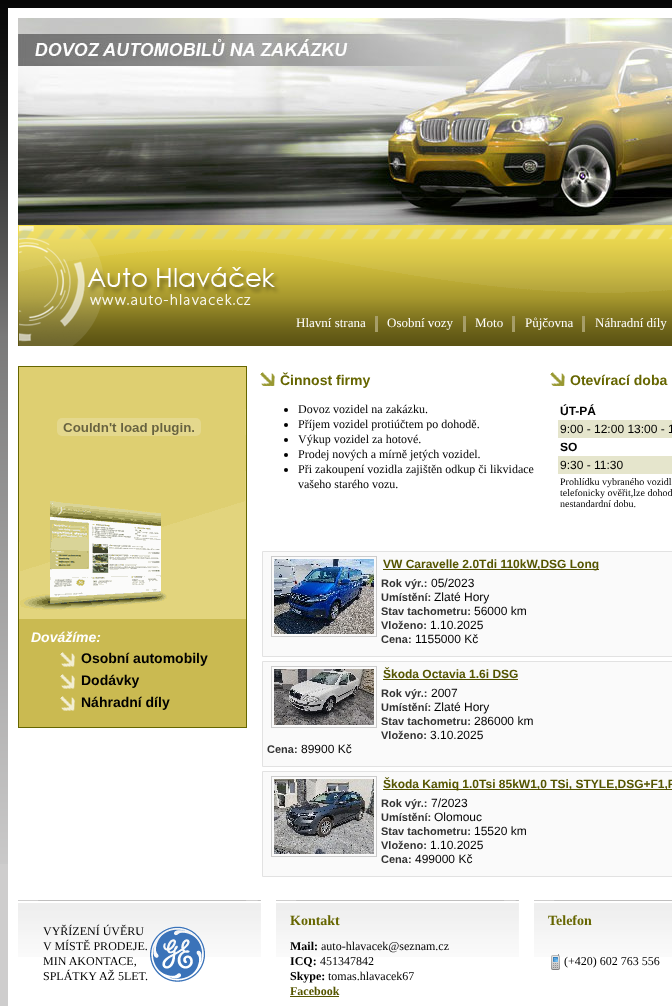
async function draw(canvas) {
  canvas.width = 672
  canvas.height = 1006
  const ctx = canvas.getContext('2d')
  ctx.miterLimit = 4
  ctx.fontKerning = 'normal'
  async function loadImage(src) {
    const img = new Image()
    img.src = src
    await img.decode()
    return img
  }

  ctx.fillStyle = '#cecdcd'
  ctx.fillRect(0, 0, 672, 1006)
  ctx.drawImage(await loadImage('image0.png'), 0, 0, 672, 864)
  ctx.fillStyle = '#fff'
  ctx.fillRect(8, 8, 664, 998)
  ctx.drawImage(await loadImage('image1.png'), 18, 18, 654, 207)
  ctx.drawImage(await loadImage('image2.png'), 18, 225, 654, 121)
  ctx.font = '13px Liberation Serif'
  ctx.fillText('Hlavní strana', 296, 327)
  ctx.fillStyle = '#a79e69'
  ctx.fillRect(375, 316, 3, 16)
  ctx.fillStyle = '#fff'
  ctx.fillText('Osobní vozy', 387, 327)
  ctx.fillStyle = '#a79e69'
  ctx.fillRect(463, 316, 3, 16)
  ctx.fillStyle = '#fff'
  ctx.fillText('Moto', 475, 327)
  ctx.fillStyle = '#a79e69'
  ctx.fillRect(512, 316, 3, 16)
  ctx.fillStyle = '#fff'
  ctx.fillText('Půjčovna', 525, 327)
  ctx.fillStyle = '#a79e69'
  ctx.fillRect(582, 316, 3, 16)
  ctx.fillStyle = '#fff'
  ctx.fillText('Náhradní díly', 595, 327)
  ctx.drawImage(await loadImage('image3.png'), 19, 367, 227, 360)
  ctx.strokeStyle = '#660'
  ctx.strokeRect(18.5, 366.5, 228, 361)
  ctx.drawImage(await loadImage('image4.png'), 57, 418, 144, 18)
  ctx.font = 'italic bold 14px Liberation Sans'
  ctx.fillText('Dovážíme:', 31, 642)
  ctx.drawImage(await loadImage('image5.png'), 60, 652, 15, 15)
  ctx.font = 'bold 14px Liberation Sans'
  ctx.fillStyle = '#000'
  ctx.fillText('Osobní automobily', 81, 663)
  ctx.drawImage(await loadImage('image5.png'), 60, 674, 15, 15)
  ctx.fillText('Dodávky', 81, 685)
  ctx.drawImage(await loadImage('image5.png'), 60, 696, 15, 15)
  ctx.fillText('Náhradní díly', 81, 707)
  ctx.drawImage(await loadImage('image6.png'), 260, 372, 15, 14)
  ctx.fillStyle = '#660'
  ctx.fillText('Činnost firmy', 280, 385)
  ctx.fillStyle = '#000'
  ctx.beginPath()
  ctx.arc(286, 410, 2, 0, 2 * Math.PI)
  ctx.fill()
  ctx.font = '12px Liberation Serif'
  ctx.fillText('Dovoz vozidel na zakázku.', 298, 413)
  ctx.beginPath()
  ctx.arc(286, 425, 2, 0, 2 * Math.PI)
  ctx.fill()
  ctx.fillText('Příjem vozidel protiúčtem po dohodě.', 298, 428)
  ctx.beginPath()
  ctx.arc(286, 440, 2, 0, 2 * Math.PI)
  ctx.fill()
  ctx.fillText('Výkup vozidel za hotové.', 298, 443)
  ctx.beginPath()
  ctx.arc(286, 455, 2, 0, 2 * Math.PI)
  ctx.fill()
  ctx.fillText('Prodej nových a mírně jetých vozidel.', 298, 458)
  ctx.beginPath()
  ctx.arc(286, 470, 2, 0, 2 * Math.PI)
  ctx.fill()
  ctx.fillText('Při zakoupení vozidla zajištěn odkup či likvidace', 298, 473)
  ctx.fillText('vašeho starého vozu.', 298, 488)
  ctx.drawImage(await loadImage('image6.png'), 550, 372, 15, 14)
  ctx.font = 'bold 14px Liberation Sans'
  ctx.fillStyle = '#660'
  ctx.fillText('Otevírací doba', 570, 385)
  ctx.font = 'bold 12px Liberation Sans'
  ctx.fillStyle = '#000'
  ctx.fillText('ÚT-PÁ', 560, 415)
  ctx.fillStyle = '#e5e5cc'
  ctx.fillRect(558, 420, 114, 18)
  ctx.font = '12px Liberation Sans'
  ctx.fillStyle = '#000'
  ctx.fillText('9:00 - 12:00 13:00 - 1', 560, 433)
  ctx.font = 'bold 12px Liberation Sans'
  ctx.fillText('SO', 560, 451)
  ctx.fillStyle = '#e5e5cc'
  ctx.fillRect(558, 456, 114, 18)
  ctx.font = '12px Liberation Sans'
  ctx.fillStyle = '#000'
  ctx.fillText('9:30 - 11:30', 560, 469)
  ctx.font = '10px Liberation Serif'
  ctx.fillText('Prohlídku vybraného vozidl', 560, 485)
  ctx.fillText('telefonicky ověřit,lze dohod', 560, 496)
  ctx.fillText('nestandardní dobu.', 560, 507)
  ctx.fillStyle = '#fafafa'
  ctx.beginPath()
  ctx.rect(262.5, 551.5, 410, 105)
  ctx.fill()
  ctx.strokeStyle = '#e2e2e2'
  ctx.stroke()
  ctx.strokeStyle = '#ccc'
  ctx.strokeRect(271.5, 556.5, 105, 80)
  ctx.drawImage(await loadImage('image7.png'), 274, 559, 100, 75)
  ctx.fillStyle = '#550'
  ctx.fillRect(383, 569, 216, 1)
  ctx.font = 'bold 12px Liberation Sans'
  ctx.fillText('VW Caravelle 2.0Tdi 110kW,DSG Long', 383, 568)
  ctx.font = 'bold 11px Liberation Sans'
  ctx.fillStyle = '#333'
  ctx.fillText('Rok výr.:', 381, 587)
  ctx.font = '12px Liberation Sans'
  ctx.fillStyle = '#000'
  ctx.fillText('05/2023', 431, 587)
  ctx.font = 'bold 11px Liberation Sans'
  ctx.fillStyle = '#333'
  ctx.fillText('Umístění:', 381, 601)
  ctx.font = '12px Liberation Sans'
  ctx.fillStyle = '#000'
  ctx.fillText('Zlaté Hory', 434, 601)
  ctx.font = 'bold 11px Liberation Sans'
  ctx.fillStyle = '#333'
  ctx.fillText('Stav tachometru:', 381, 615)
  ctx.font = '12px Liberation Sans'
  ctx.fillStyle = '#000'
  ctx.fillText('56000 km', 474, 615)
  ctx.font = 'bold 11px Liberation Sans'
  ctx.fillStyle = '#333'
  ctx.fillText('Vloženo:', 381, 629)
  ctx.font = '12px Liberation Sans'
  ctx.fillStyle = '#000'
  ctx.fillText('1.10.2025', 430, 629)
  ctx.font = 'bold 11px Liberation Sans'
  ctx.fillStyle = '#333'
  ctx.fillText('Cena:', 381, 643)
  ctx.font = '12px Liberation Sans'
  ctx.fillStyle = '#000'
  ctx.fillText('1155000 Kč', 415, 643)
  ctx.fillStyle = '#fafafa'
  ctx.beginPath()
  ctx.rect(262.5, 661.5, 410, 105)
  ctx.fill()
  ctx.strokeStyle = '#e2e2e2'
  ctx.stroke()
  ctx.strokeStyle = '#ccc'
  ctx.strokeRect(271.5, 666.5, 105, 61)
  ctx.drawImage(await loadImage('image8.png'), 274, 669, 100, 56)
  ctx.font = 'bold 12px Liberation Sans'
  ctx.fillStyle = '#550'
  ctx.fillText('Škoda Octavia 1.6i DSG', 383, 678)
  ctx.fillRect(383, 679, 135, 1)
  ctx.font = 'bold 11px Liberation Sans'
  ctx.fillStyle = '#333'
  ctx.fillText('Rok výr.:', 381, 697)
  ctx.font = '12px Liberation Sans'
  ctx.fillStyle = '#000'
  ctx.fillText('2007', 431, 697)
  ctx.font = 'bold 11px Liberation Sans'
  ctx.fillStyle = '#333'
  ctx.fillText('Umístění:', 381, 711)
  ctx.font = '12px Liberation Sans'
  ctx.fillStyle = '#000'
  ctx.fillText('Zlaté Hory', 434, 711)
  ctx.font = 'bold 11px Liberation Sans'
  ctx.fillStyle = '#333'
  ctx.fillText('Stav tachometru:', 381, 725)
  ctx.font = '12px Liberation Sans'
  ctx.fillStyle = '#000'
  ctx.fillText('286000 km', 474, 725)
  ctx.font = 'bold 11px Liberation Sans'
  ctx.fillStyle = '#333'
  ctx.fillText('Vloženo:', 381, 739)
  ctx.font = '12px Liberation Sans'
  ctx.fillStyle = '#000'
  ctx.fillText('3.10.2025', 430, 739)
  ctx.font = 'bold 11px Liberation Sans'
  ctx.fillStyle = '#333'
  ctx.fillText('Cena:', 267, 753)
  ctx.font = '12px Liberation Sans'
  ctx.fillStyle = '#000'
  ctx.fillText('89900 Kč', 301, 753)
  ctx.fillStyle = '#fafafa'
  ctx.beginPath()
  ctx.rect(262.5, 771.5, 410, 105)
  ctx.fill()
  ctx.strokeStyle = '#e2e2e2'
  ctx.stroke()
  ctx.strokeStyle = '#ccc'
  ctx.strokeRect(271.5, 776.5, 105, 80)
  ctx.drawImage(await loadImage('image9.png'), 274, 779, 100, 75)
  ctx.fillStyle = '#550'
  ctx.fillRect(383, 789, 289, 1)
  ctx.font = 'bold 12px Liberation Sans'
  ctx.fillText('Škoda Kamiq 1.0Tsi 85kW1,0 TSi, STYLE,DSG+F1,F', 383, 788)
  ctx.font = 'bold 11px Liberation Sans'
  ctx.fillStyle = '#333'
  ctx.fillText('Rok výr.:', 381, 807)
  ctx.font = '12px Liberation Sans'
  ctx.fillStyle = '#000'
  ctx.fillText('7/2023', 431, 807)
  ctx.font = 'bold 11px Liberation Sans'
  ctx.fillStyle = '#333'
  ctx.fillText('Umístění:', 381, 821)
  ctx.font = '12px Liberation Sans'
  ctx.fillStyle = '#000'
  ctx.fillText('Olomouc', 434, 821)
  ctx.font = 'bold 11px Liberation Sans'
  ctx.fillStyle = '#333'
  ctx.fillText('Stav tachometru:', 381, 835)
  ctx.font = '12px Liberation Sans'
  ctx.fillStyle = '#000'
  ctx.fillText('15520 km', 474, 835)
  ctx.font = 'bold 11px Liberation Sans'
  ctx.fillStyle = '#333'
  ctx.fillText('Vloženo:', 381, 849)
  ctx.font = '12px Liberation Sans'
  ctx.fillStyle = '#000'
  ctx.fillText('1.10.2025', 430, 849)
  ctx.font = 'bold 11px Liberation Sans'
  ctx.fillStyle = '#333'
  ctx.fillText('Cena:', 381, 863)
  ctx.font = '12px Liberation Sans'
  ctx.fillStyle = '#000'
  ctx.fillText('499000 Kč', 415, 863)
  ctx.drawImage(await loadImage('image10.png'), 18, 900, 243, 57)
  ctx.font = '12px Liberation Serif'
  ctx.fillText('VYŘÍZENÍ ÚVĚRU', 43, 935)
  ctx.fillText('V MÍSTĚ PRODEJE.', 43, 950)
  ctx.fillText('MIN AKONTACE,', 43, 965)
  ctx.fillText('SPLÁTKY AŽ 5LET.', 43, 980)
  ctx.drawImage(await loadImage('image11.png'), 150, 926, 55, 56)
  ctx.drawImage(await loadImage('image10.png'), 276, 900, 243, 57)
  ctx.font = 'bold 14px Liberation Serif'
  ctx.fillStyle = '#660'
  ctx.fillText('Kontakt', 290, 925)
  ctx.font = 'bold 12px Liberation Serif'
  ctx.fillStyle = '#000'
  ctx.fillText('Mail:', 290, 950)
  ctx.font = '12px Liberation Serif'
  ctx.fillText('auto-hlavacek@seznam.cz', 321, 950)
  ctx.font = 'bold 12px Liberation Serif'
  ctx.fillText('ICQ:', 290, 965)
  ctx.font = '12px Liberation Serif'
  ctx.fillText('451347842', 320, 965)
  ctx.font = 'bold 12px Liberation Serif'
  ctx.fillText('Skype:', 290, 980)
  ctx.font = '12px Liberation Serif'
  ctx.fillText('tomas.hlavacek67', 328, 980)
  ctx.font = 'bold 12px Liberation Serif'
  ctx.fillStyle = '#550'
  ctx.fillText('Facebook', 290, 995)
  ctx.fillRect(290, 996, 49, 1)
  ctx.drawImage(await loadImage('image12.png'), 534, 900, 138, 57)
  ctx.font = 'bold 14px Liberation Serif'
  ctx.fillStyle = '#660'
  ctx.fillText('Telefon', 548, 925)
  ctx.drawImage(await loadImage('image13.png'), 551, 954, 9, 16)
  ctx.font = '12px Liberation Serif'
  ctx.fillStyle = '#000'
  ctx.fillText('(+420) 602 763 556', 564, 965)
}

draw(document.querySelector('canvas'))
